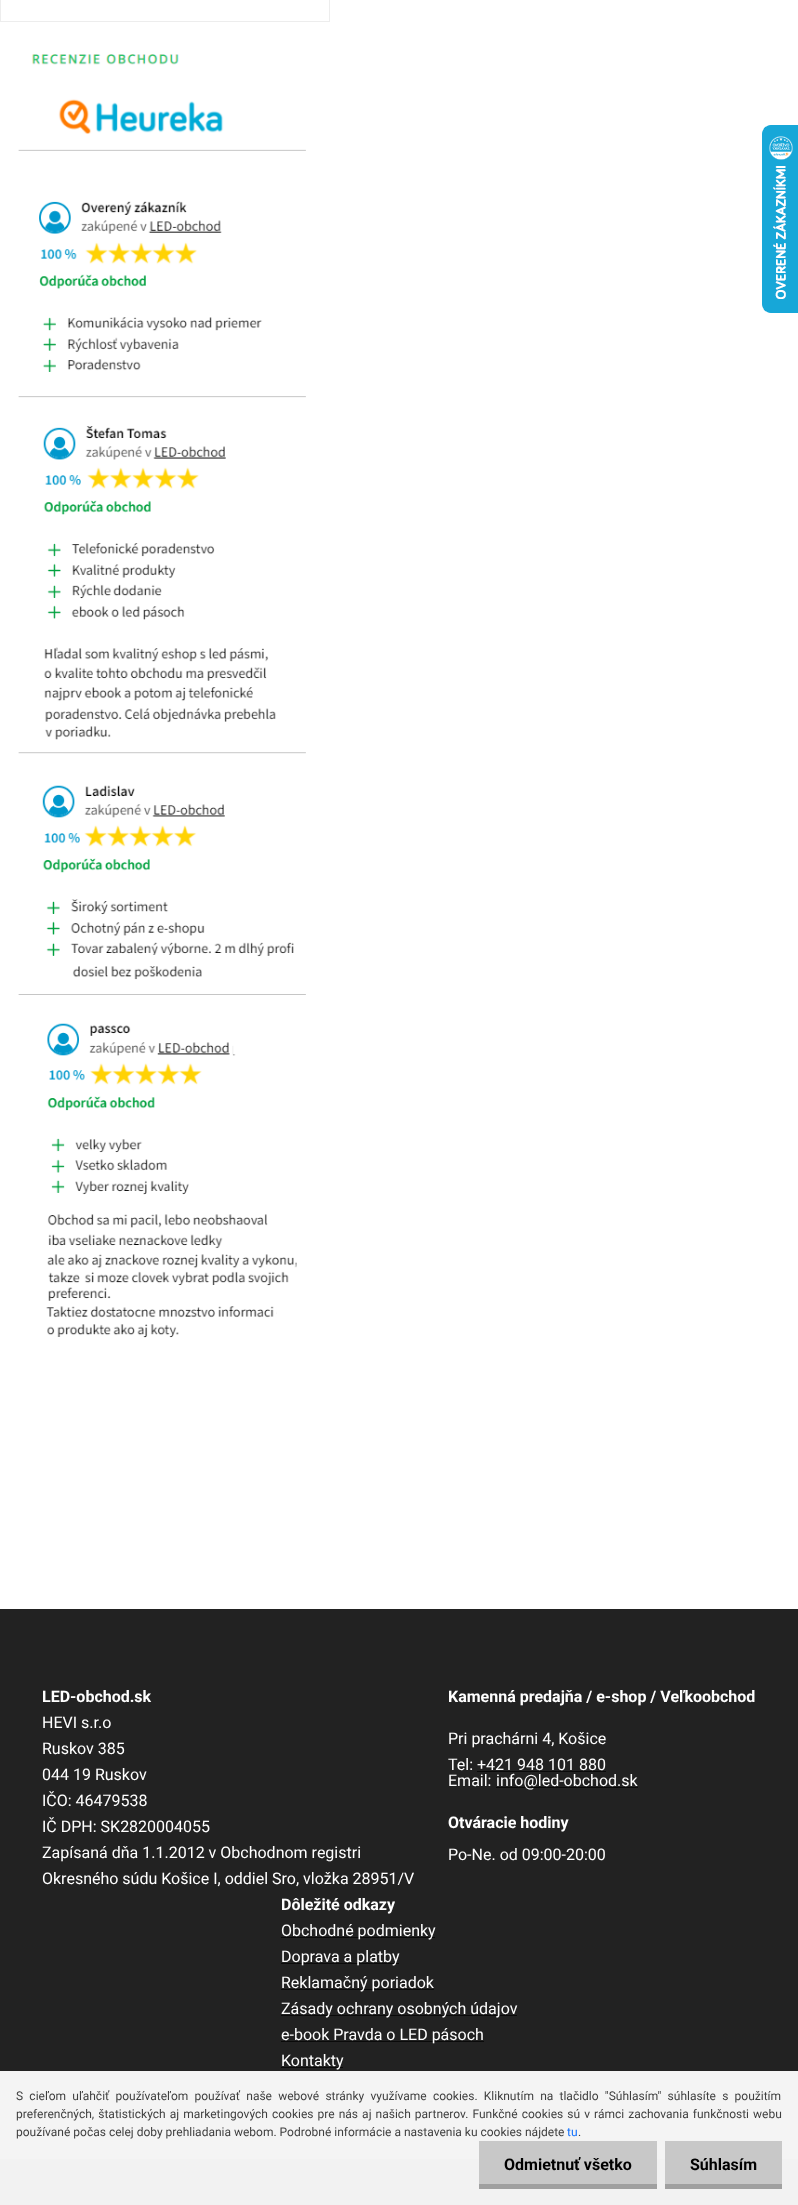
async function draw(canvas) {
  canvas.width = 798
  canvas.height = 2205
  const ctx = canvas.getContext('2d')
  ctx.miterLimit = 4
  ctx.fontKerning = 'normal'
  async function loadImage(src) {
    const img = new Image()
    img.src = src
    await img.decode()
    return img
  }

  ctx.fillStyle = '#fff'
  ctx.fillRect(0, 0, 798, 2205)
  ctx.drawImage(await loadImage('image0.png'), 762, 125, 36, 188)
  ctx.strokeStyle = '#ededed'
  ctx.strokeRect(0.5, -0.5, 329, 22)
  ctx.drawImage(await loadImage('image1.png'), 18, 54, 288, 1284)
  ctx.fillStyle = '#222'
  ctx.fillRect(0, 1609, 798, 462)
  ctx.fillStyle = '#f4f4f4'
  ctx.fillRect(0, 2071, 798, 88)
  ctx.font = 'bold 16px Roboto'
  ctx.fillStyle = '#fff'
  ctx.fillText('LED-obchod.sk', 42, 1702)
  ctx.font = '16px Roboto'
  ctx.fillText('HEVI s.r.o', 42, 1728)
  ctx.fillText('Ruskov 385', 42, 1754)
  ctx.fillText('044 19 Ruskov', 42, 1780)
  ctx.fillText('IČO: 46479538', 42, 1806)
  ctx.fillText('IČ DPH: SK2820004055', 42, 1832)
  ctx.fillText('Zapísaná dňa 1.1.2012 v Obchodnom registri', 42, 1858)
  ctx.fillText('Okresného súdu Košice I, oddiel Sro, vložka 28951/V', 42, 1884)
  ctx.font = 'bold 16px Roboto'
  ctx.fillText('Kamenná predajňa / e-shop / Veľkoobchod', 448, 1702)
  ctx.font = '16px Roboto'
  ctx.fillText('Pri prachárni 4, Košice', 448, 1744)
  ctx.fillText('Tel: +421 948 101 880', 448, 1770)
  ctx.fillStyle = '#0a0a0a'
  ctx.fillRect(477, 1771, 129, 1)
  ctx.fillStyle = '#fff'
  ctx.fillText('Email:', 448, 1786)
  ctx.fillStyle = '#0a0a0a'
  ctx.fillRect(496, 1787, 142, 1)
  ctx.fillStyle = '#fff'
  ctx.fillText('info@led-obchod.sk', 496, 1786)
  ctx.font = 'bold 16px Roboto'
  ctx.fillText('Otváracie hodiny', 448, 1828)
  ctx.font = '16px Roboto'
  ctx.fillText('Po-Ne. od 09:00-20:00', 448, 1860)
  ctx.font = 'bold 16px Roboto'
  ctx.fillText('Dôležité odkazy', 281, 1910)
  ctx.fillStyle = '#0a0a0a'
  ctx.fillRect(281, 1937, 154, 1)
  ctx.font = '16px Roboto'
  ctx.fillStyle = '#fff'
  ctx.fillText('Obchodné podmienky', 281, 1936)
  ctx.fillStyle = '#0a0a0a'
  ctx.fillRect(281, 1963, 118, 1)
  ctx.fillStyle = '#fff'
  ctx.fillText('Doprava a platby', 281, 1962)
  ctx.fillStyle = '#0a0a0a'
  ctx.fillRect(281, 1989, 153, 1)
  ctx.fillStyle = '#fff'
  ctx.fillText('Reklamačný poriadok', 281, 1988)
  ctx.fillStyle = '#0a0a0a'
  ctx.fillRect(281, 2015, 236, 1)
  ctx.fillStyle = '#fff'
  ctx.fillText('Zásady ochrany osobných údajov', 281, 2014)
  ctx.fillStyle = '#0a0a0a'
  ctx.fillRect(281, 2041, 203, 1)
  ctx.fillStyle = '#fff'
  ctx.fillText('e-book Pravda o LED pásoch', 281, 2040)
  ctx.fillStyle = '#0a0a0a'
  ctx.fillRect(281, 2067, 62, 1)
  ctx.fillStyle = '#fff'
  ctx.fillText('Kontakty', 281, 2066)
  ctx.fillStyle = '#f2f2f2'
  ctx.fillRect(0, 2159, 798, 46)
  ctx.wordSpacing = '3.25px'
  ctx.font = '12px Roboto'
  ctx.fillStyle = '#3f3f3f'
  ctx.fillText('S cieľom uľahčiť používateľom používať naše webové stránky využívame cookies. Kliknutím na tlačidlo "Súhlasím" súhlasíte s použitím', 16, 2100)
  ctx.wordSpacing = '1.1px'
  ctx.fillText('preferenčných, štatistických aj marketingových cookies pre nás aj našich partnerov. Funkčné cookies sú v rámci zachovania funkčnosti webu', 16, 2118)
  ctx.wordSpacing = '0px'
  ctx.fillText('používané počas celej doby prehliadania webom. Podrobné informácie a nastavenia ku cookies nájdete', 16, 2136)
  ctx.fillStyle = '#0d6efd'
  ctx.fillText('tu', 567, 2136)
  ctx.fillStyle = '#3f3f3f'
  ctx.fillText('.', 578, 2136)
  ctx.fillStyle = '#c8c8c8'
  ctx.fillRect(479, 2141, 178, 43)
  ctx.fillStyle = '#a0a0a0'
  ctx.fillRect(479, 2184, 178, 5)
  ctx.font = 'bold 16px Roboto'
  ctx.fillStyle = '#000'
  ctx.fillText('Odmietnuť všetko', 504, 2170)
  ctx.fillStyle = '#c8c8c8'
  ctx.fillRect(665, 2141, 117, 43)
  ctx.fillStyle = '#a0a0a0'
  ctx.fillRect(665, 2184, 117, 5)
  ctx.fillStyle = '#000'
  ctx.fillText('Súhlasím', 690, 2170)
}

draw(document.querySelector('canvas'))
